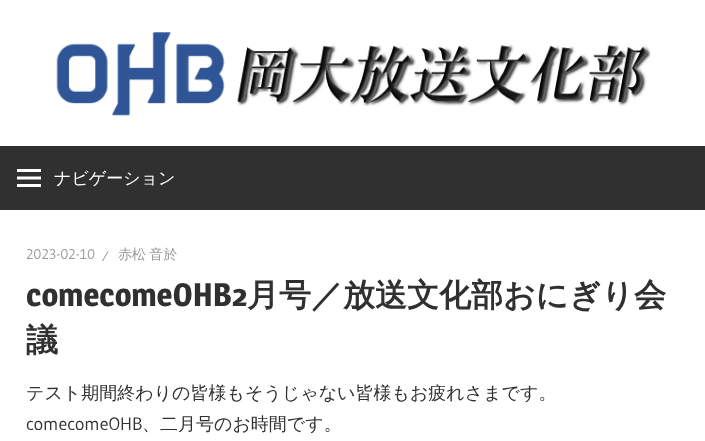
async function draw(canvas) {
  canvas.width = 705
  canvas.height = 441
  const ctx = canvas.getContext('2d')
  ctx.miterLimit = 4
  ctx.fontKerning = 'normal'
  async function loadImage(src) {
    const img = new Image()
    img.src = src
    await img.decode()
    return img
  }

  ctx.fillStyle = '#fff'
  ctx.fillRect(0, 0, 705, 441)
  ctx.drawImage(await loadImage('image0.png'), 56, 32, 595, 84)
  ctx.fillStyle = '#303030'
  ctx.fillRect(0, 146, 705, 64)
  ctx.drawImage(await loadImage('image1.png'), 17, 169, 24, 18)
  ctx.font = '500 17px WenQuanYi Zen Hei'
  ctx.fillStyle = '#fff'
  ctx.fillText('ナビゲーション', 54, 184)
  ctx.font = '14px Gudea'
  ctx.fillStyle = '#999'
  ctx.fillText('2023-02-10', 26, 259)
  ctx.fillText('⁄', 102, 261)
  ctx.wordSpacing = '-1px'
  ctx.font = '500 14px WenQuanYi Zen Hei'
  ctx.fillText('赤松 音於', 118, 259)
  ctx.wordSpacing = '0px'
  ctx.font = 'bold 32px Magra'
  ctx.fillStyle = '#303030'
  ctx.fillText('comecomeOHB2', 26, 306)
  ctx.font = 'bold 32px WenQuanYi Zen Hei'
  ctx.fillText('月号／放送文化部おにぎり会', 247, 306)
  ctx.fillText('議', 26, 351)
  ctx.font = '500 18px WenQuanYi Zen Hei'
  ctx.fillText('テスト期間終わりの皆様もそうじゃない皆様もお疲れさまです。', 26, 399)
  ctx.font = '18px Gudea'
  ctx.fillText('comecomeOHB', 26, 430)
  ctx.font = '500 18px WenQuanYi Zen Hei'
  ctx.fillText('、二月号のお時間です。', 142, 430)
}

draw(document.querySelector('canvas'))
